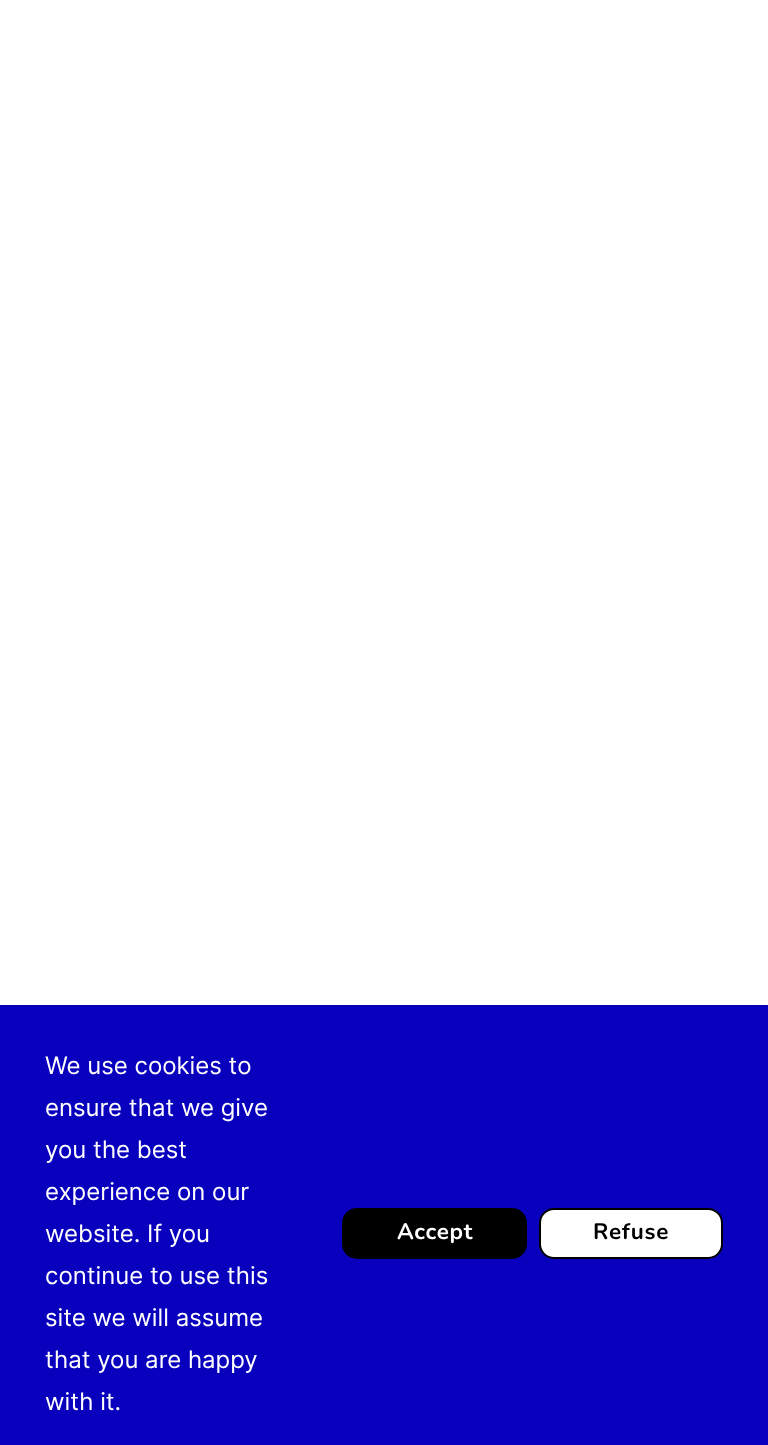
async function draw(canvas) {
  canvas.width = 768
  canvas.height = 1445
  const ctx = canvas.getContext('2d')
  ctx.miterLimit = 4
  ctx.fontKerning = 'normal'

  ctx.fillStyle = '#fff'
  ctx.fillRect(0, 0, 768, 1445)
  ctx.fillStyle = '#0900bd'
  ctx.fillRect(0, 1005, 768, 440)
  ctx.font = '24px Inter'
  ctx.fillStyle = '#fff'
  ctx.fillText('We use cookies to', 45, 1074)
  ctx.fillText('ensure that we give', 45, 1116)
  ctx.fillText('you the best', 45, 1158)
  ctx.fillText('experience on our', 45, 1200)
  ctx.fillText('website. If you', 45, 1242)
  ctx.fillText('continue to use this', 45, 1284)
  ctx.fillText('site we will assume', 45, 1326)
  ctx.fillText('that you are happy', 45, 1368)
  ctx.fillText('with it.', 45, 1410)
  ctx.fillStyle = '#000'
  ctx.beginPath()
  ctx.roundRect(343, 1209, 183, 49, 14)
  ctx.fill()
  ctx.strokeStyle = '#000'
  ctx.lineWidth = 2
  ctx.stroke()
  ctx.letterSpacing = '0.75px'
  ctx.font = 'bold 22.5px Nunito'
  ctx.fillStyle = '#fff'
  ctx.fillText('Accept', 397, 1239)
  ctx.beginPath()
  ctx.roundRect(540, 1209, 182, 49, 14)
  ctx.fill()
  ctx.stroke()
  ctx.fillStyle = '#000'
  ctx.fillText('Refuse', 593, 1239)
}

draw(document.querySelector('canvas'))
